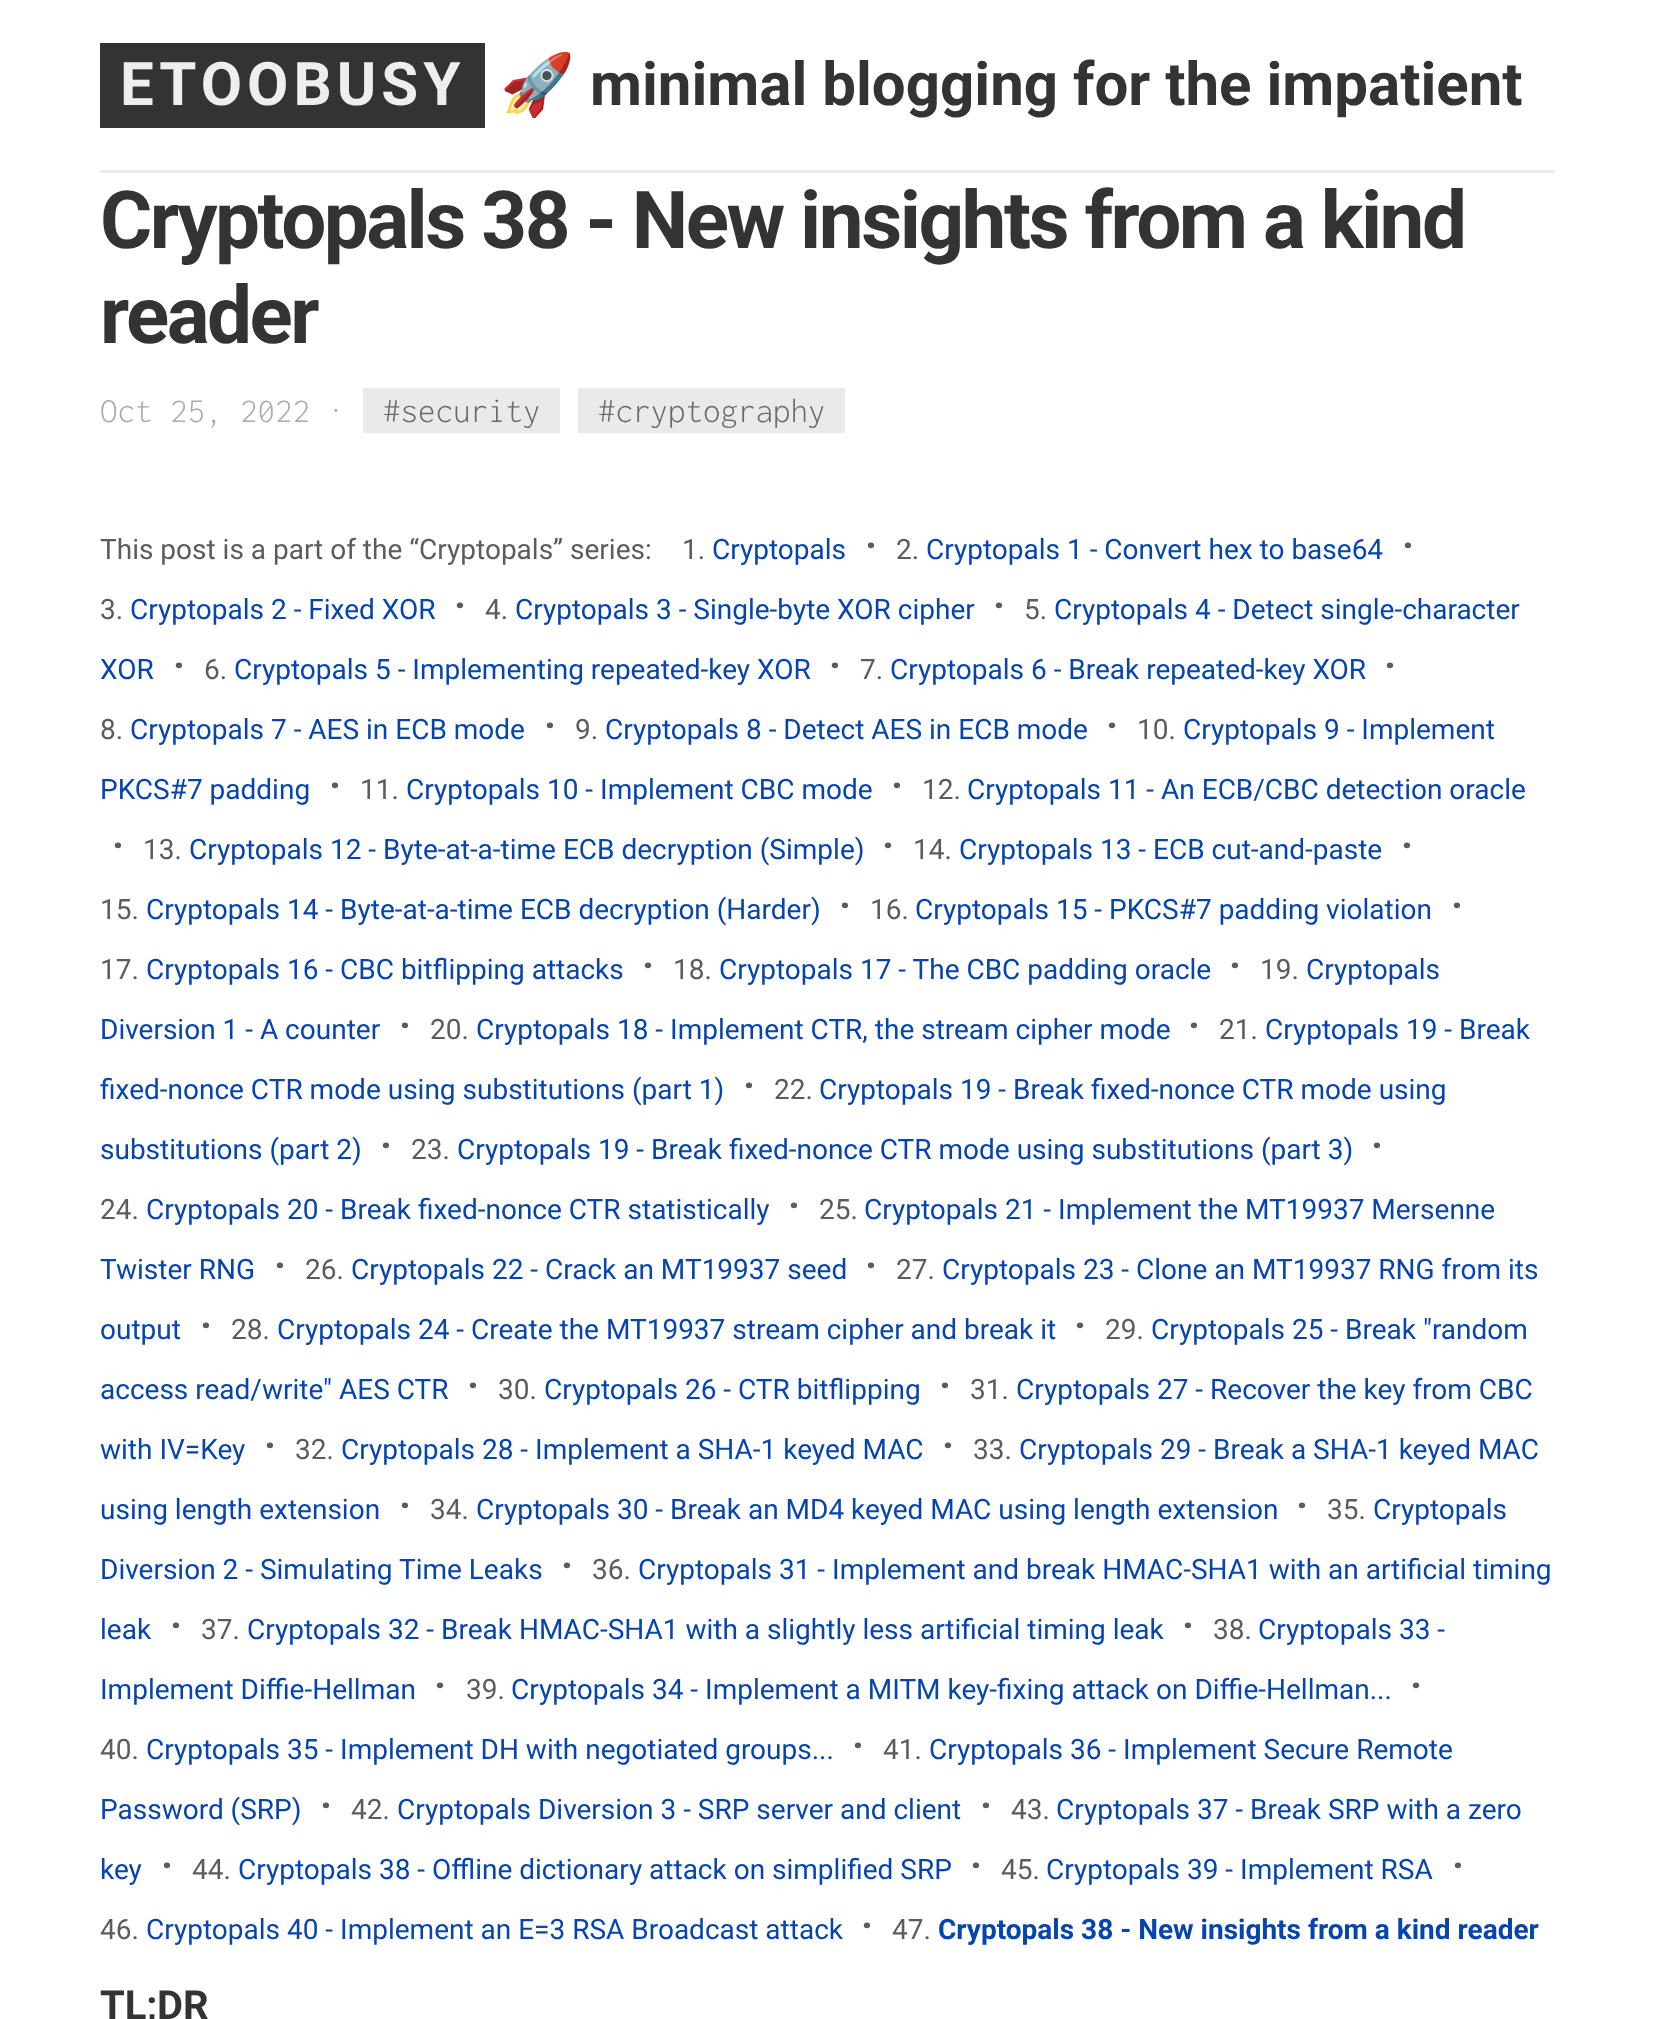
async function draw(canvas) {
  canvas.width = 1655
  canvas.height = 2019
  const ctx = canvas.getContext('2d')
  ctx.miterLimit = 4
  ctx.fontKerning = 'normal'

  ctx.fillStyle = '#fff'
  ctx.fillRect(0, 0, 1655, 2019)
  ctx.fillStyle = '#eaeaea'
  ctx.fillRect(100, 170, 1455, 3)
  ctx.fillStyle = '#333'
  ctx.fillRect(100, 43, 385, 85)
  ctx.letterSpacing = '5px'
  ctx.font = 'bold 60px Roboto'
  ctx.fillStyle = '#eee'
  ctx.fillText('ETOOBUSY', 120, 105)
  ctx.letterSpacing = '0px'
  ctx.font = 'bold 60px Noto Color Emoji'
  ctx.fillStyle = '#333'
  ctx.fillText('🚀', 500, 105)
  ctx.font = 'bold 60px Roboto'
  ctx.fillText('minimal blogging for the impatient', 590, 105)
  ctx.letterSpacing = '-2.5px'
  ctx.font = 'bold 80px Roboto'
  ctx.fillText('Cryptopals 38 - New insights from a kind', 100, 248)
  ctx.fillText('reader', 100, 343)
  ctx.letterSpacing = '0px'
  ctx.font = '300 35px Inconsolata'
  ctx.fillStyle = '#aaa'
  ctx.fillText('Oct 25, 2022 ·', 100, 422)
  ctx.fillStyle = '#eaeaea'
  ctx.fillRect(363, 388, 197, 45)
  ctx.fillStyle = '#6a6a6a'
  ctx.fillText('#security', 383, 422)
  ctx.fillStyle = '#eaeaea'
  ctx.fillRect(578, 388, 267, 45)
  ctx.fillStyle = '#6a6a6a'
  ctx.fillText('#cryptography', 598, 422)
  ctx.font = '28px Roboto'
  ctx.fillStyle = '#5c5c5c'
  ctx.fillText('This post is a part of the “Cryptopals” series:', 100, 559)
  ctx.fillText('1.', 682, 559)
  ctx.fillStyle = '#0645ad'
  ctx.fillText('Cryptopals', 712, 559)
  ctx.font = 'bold 40px Roboto'
  ctx.fillStyle = '#5c5c5c'
  ctx.fillText('·', 865, 559)
  ctx.font = '28px Roboto'
  ctx.fillText('2.', 896, 559)
  ctx.fillStyle = '#0645ad'
  ctx.fillText('Cryptopals 1 - Convert hex to base64', 926, 559)
  ctx.font = 'bold 40px Roboto'
  ctx.fillStyle = '#5c5c5c'
  ctx.fillText('·', 1402, 559)
  ctx.font = '28px Roboto'
  ctx.fillText('3.', 100, 619)
  ctx.fillStyle = '#0645ad'
  ctx.fillText('Cryptopals 2 - Fixed XOR', 130, 619)
  ctx.font = 'bold 40px Roboto'
  ctx.fillStyle = '#5c5c5c'
  ctx.fillText('·', 454, 619)
  ctx.font = '28px Roboto'
  ctx.fillText('4.', 485, 619)
  ctx.fillStyle = '#0645ad'
  ctx.fillText('Cryptopals 3 - Single-byte XOR cipher', 515, 619)
  ctx.font = 'bold 40px Roboto'
  ctx.fillStyle = '#5c5c5c'
  ctx.fillText('·', 993, 619)
  ctx.font = '28px Roboto'
  ctx.fillText('5.', 1024, 619)
  ctx.fillStyle = '#0645ad'
  ctx.fillText('Cryptopals 4 - Detect single-character', 1054, 619)
  ctx.fillText('XOR', 100, 679)
  ctx.font = 'bold 40px Roboto'
  ctx.fillStyle = '#5c5c5c'
  ctx.fillText('·', 173, 679)
  ctx.font = '28px Roboto'
  ctx.fillText('6.', 204, 679)
  ctx.fillStyle = '#0645ad'
  ctx.fillText('Cryptopals 5 - Implementing repeated-key XOR', 234, 679)
  ctx.font = 'bold 40px Roboto'
  ctx.fillStyle = '#5c5c5c'
  ctx.fillText('·', 829, 679)
  ctx.font = '28px Roboto'
  ctx.fillText('7.', 860, 679)
  ctx.fillStyle = '#0645ad'
  ctx.fillText('Cryptopals 6 - Break repeated-key XOR', 890, 679)
  ctx.font = 'bold 40px Roboto'
  ctx.fillStyle = '#5c5c5c'
  ctx.fillText('·', 1384, 679)
  ctx.font = '28px Roboto'
  ctx.fillText('8.', 100, 739)
  ctx.fillStyle = '#0645ad'
  ctx.fillText('Cryptopals 7 - AES in ECB mode', 130, 739)
  ctx.font = 'bold 40px Roboto'
  ctx.fillStyle = '#5c5c5c'
  ctx.fillText('·', 544, 739)
  ctx.font = '28px Roboto'
  ctx.fillText('9.', 575, 739)
  ctx.fillStyle = '#0645ad'
  ctx.fillText('Cryptopals 8 - Detect AES in ECB mode', 605, 739)
  ctx.font = 'bold 40px Roboto'
  ctx.fillStyle = '#5c5c5c'
  ctx.fillText('·', 1106, 739)
  ctx.font = '28px Roboto'
  ctx.fillText('10.', 1137, 739)
  ctx.fillStyle = '#0645ad'
  ctx.fillText('Cryptopals 9 - Implement', 1183, 739)
  ctx.fillText('PKCS#7 padding', 100, 799)
  ctx.font = 'bold 40px Roboto'
  ctx.fillStyle = '#5c5c5c'
  ctx.fillText('·', 329, 799)
  ctx.font = '28px Roboto'
  ctx.fillText('11.', 360, 799)
  ctx.fillStyle = '#0645ad'
  ctx.fillText('Cryptopals 10 - Implement CBC mode', 406, 799)
  ctx.font = 'bold 40px Roboto'
  ctx.fillStyle = '#5c5c5c'
  ctx.fillText('·', 891, 799)
  ctx.font = '28px Roboto'
  ctx.fillText('12.', 922, 799)
  ctx.fillStyle = '#0645ad'
  ctx.fillText('Cryptopals 11 - An ECB/CBC detection oracle', 967, 799)
  ctx.font = 'bold 40px Roboto'
  ctx.fillStyle = '#5c5c5c'
  ctx.fillText('·', 112, 859)
  ctx.font = '28px Roboto'
  ctx.fillText('13.', 143, 859)
  ctx.fillStyle = '#0645ad'
  ctx.fillText('Cryptopals 12 - Byte-at-a-time ECB decryption (Simple)', 189, 859)
  ctx.font = 'bold 40px Roboto'
  ctx.fillStyle = '#5c5c5c'
  ctx.fillText('·', 882, 859)
  ctx.font = '28px Roboto'
  ctx.fillText('14.', 913, 859)
  ctx.fillStyle = '#0645ad'
  ctx.fillText('Cryptopals 13 - ECB cut-and-paste', 959, 859)
  ctx.font = 'bold 40px Roboto'
  ctx.fillStyle = '#5c5c5c'
  ctx.fillText('·', 1401, 859)
  ctx.font = '28px Roboto'
  ctx.fillText('15.', 100, 919)
  ctx.fillStyle = '#0645ad'
  ctx.fillText('Cryptopals 14 - Byte-at-a-time ECB decryption (Harder)', 146, 919)
  ctx.font = 'bold 40px Roboto'
  ctx.fillStyle = '#5c5c5c'
  ctx.fillText('·', 839, 919)
  ctx.font = '28px Roboto'
  ctx.fillText('16.', 870, 919)
  ctx.fillStyle = '#0645ad'
  ctx.fillText('Cryptopals 15 - PKCS#7 padding violation', 915, 919)
  ctx.font = 'bold 40px Roboto'
  ctx.fillStyle = '#5c5c5c'
  ctx.fillText('·', 1451, 919)
  ctx.font = '28px Roboto'
  ctx.fillText('17.', 100, 979)
  ctx.fillStyle = '#0645ad'
  ctx.fillText('Cryptopals 16 - CBC bitflipping attacks', 146, 979)
  ctx.font = 'bold 40px Roboto'
  ctx.fillStyle = '#5c5c5c'
  ctx.fillText('·', 642, 979)
  ctx.font = '28px Roboto'
  ctx.fillText('18.', 673, 979)
  ctx.fillStyle = '#0645ad'
  ctx.fillText('Cryptopals 17 - The CBC padding oracle', 719, 979)
  ctx.font = 'bold 40px Roboto'
  ctx.fillStyle = '#5c5c5c'
  ctx.fillText('·', 1229, 979)
  ctx.font = '28px Roboto'
  ctx.fillText('19.', 1260, 979)
  ctx.fillStyle = '#0645ad'
  ctx.fillText('Cryptopals', 1306, 979)
  ctx.fillText('Diversion 1 - A counter', 100, 1039)
  ctx.font = 'bold 40px Roboto'
  ctx.fillStyle = '#5c5c5c'
  ctx.fillText('·', 399, 1039)
  ctx.font = '28px Roboto'
  ctx.fillText('20.', 430, 1039)
  ctx.fillStyle = '#0645ad'
  ctx.fillText('Cryptopals 18 - Implement CTR, the stream cipher mode', 476, 1039)
  ctx.font = 'bold 40px Roboto'
  ctx.fillStyle = '#5c5c5c'
  ctx.fillText('·', 1188, 1039)
  ctx.font = '28px Roboto'
  ctx.fillText('21.', 1219, 1039)
  ctx.fillStyle = '#0645ad'
  ctx.fillText('Cryptopals 19 - Break', 1265, 1039)
  ctx.fillText('fixed-nonce CTR mode using substitutions (part 1)', 100, 1099)
  ctx.font = 'bold 40px Roboto'
  ctx.fillStyle = '#5c5c5c'
  ctx.fillText('·', 743, 1099)
  ctx.font = '28px Roboto'
  ctx.fillText('22.', 774, 1099)
  ctx.fillStyle = '#0645ad'
  ctx.fillText('Cryptopals 19 - Break fixed-nonce CTR mode using', 819, 1099)
  ctx.fillText('substitutions (part 2)', 100, 1159)
  ctx.font = 'bold 40px Roboto'
  ctx.fillStyle = '#5c5c5c'
  ctx.fillText('·', 380, 1159)
  ctx.font = '28px Roboto'
  ctx.fillText('23.', 411, 1159)
  ctx.fillStyle = '#0645ad'
  ctx.fillText('Cryptopals 19 - Break fixed-nonce CTR mode using substitutions (part 3)', 457, 1159)
  ctx.font = 'bold 40px Roboto'
  ctx.fillStyle = '#5c5c5c'
  ctx.fillText('·', 1371, 1159)
  ctx.font = '28px Roboto'
  ctx.fillText('24.', 100, 1219)
  ctx.fillStyle = '#0645ad'
  ctx.fillText('Cryptopals 20 - Break fixed-nonce CTR statistically', 146, 1219)
  ctx.font = 'bold 40px Roboto'
  ctx.fillStyle = '#5c5c5c'
  ctx.fillText('·', 788, 1219)
  ctx.font = '28px Roboto'
  ctx.fillText('25.', 819, 1219)
  ctx.fillStyle = '#0645ad'
  ctx.fillText('Cryptopals 21 - Implement the MT19937 Mersenne', 864, 1219)
  ctx.fillText('Twister RNG', 100, 1279)
  ctx.font = 'bold 40px Roboto'
  ctx.fillStyle = '#5c5c5c'
  ctx.fillText('·', 274, 1279)
  ctx.font = '28px Roboto'
  ctx.fillText('26.', 305, 1279)
  ctx.fillStyle = '#0645ad'
  ctx.fillText('Cryptopals 22 - Crack an MT19937 seed', 351, 1279)
  ctx.font = 'bold 40px Roboto'
  ctx.fillStyle = '#5c5c5c'
  ctx.fillText('·', 865, 1279)
  ctx.font = '28px Roboto'
  ctx.fillText('27.', 896, 1279)
  ctx.fillStyle = '#0645ad'
  ctx.fillText('Cryptopals 23 - Clone an MT19937 RNG from its', 942, 1279)
  ctx.fillText('output', 100, 1339)
  ctx.font = 'bold 40px Roboto'
  ctx.fillStyle = '#5c5c5c'
  ctx.fillText('·', 200, 1339)
  ctx.font = '28px Roboto'
  ctx.fillText('28.', 231, 1339)
  ctx.fillStyle = '#0645ad'
  ctx.fillText('Cryptopals 24 - Create the MT19937 stream cipher and break it', 277, 1339)
  ctx.font = 'bold 40px Roboto'
  ctx.fillStyle = '#5c5c5c'
  ctx.fillText('·', 1074, 1339)
  ctx.font = '28px Roboto'
  ctx.fillText('29.', 1105, 1339)
  ctx.fillStyle = '#0645ad'
  ctx.fillText('Cryptopals 25 - Break "random', 1151, 1339)
  ctx.fillText('access read/write" AES CTR', 100, 1399)
  ctx.font = 'bold 40px Roboto'
  ctx.fillStyle = '#5c5c5c'
  ctx.fillText('·', 467, 1399)
  ctx.font = '28px Roboto'
  ctx.fillText('30.', 498, 1399)
  ctx.fillStyle = '#0645ad'
  ctx.fillText('Cryptopals 26 - CTR bitflipping', 544, 1399)
  ctx.font = 'bold 40px Roboto'
  ctx.fillStyle = '#5c5c5c'
  ctx.fillText('·', 939, 1399)
  ctx.font = '28px Roboto'
  ctx.fillText('31.', 970, 1399)
  ctx.fillStyle = '#0645ad'
  ctx.fillText('Cryptopals 27 - Recover the key from CBC', 1016, 1399)
  ctx.fillText('with IV=Key', 100, 1459)
  ctx.font = 'bold 40px Roboto'
  ctx.fillStyle = '#5c5c5c'
  ctx.fillText('·', 264, 1459)
  ctx.font = '28px Roboto'
  ctx.fillText('32.', 295, 1459)
  ctx.fillStyle = '#0645ad'
  ctx.fillText('Cryptopals 28 - Implement a SHA-1 keyed MAC', 341, 1459)
  ctx.font = 'bold 40px Roboto'
  ctx.fillStyle = '#5c5c5c'
  ctx.fillText('·', 942, 1459)
  ctx.font = '28px Roboto'
  ctx.fillText('33.', 973, 1459)
  ctx.fillStyle = '#0645ad'
  ctx.fillText('Cryptopals 29 - Break a SHA-1 keyed MAC', 1019, 1459)
  ctx.fillText('using length extension', 100, 1519)
  ctx.font = 'bold 40px Roboto'
  ctx.fillStyle = '#5c5c5c'
  ctx.fillText('·', 399, 1519)
  ctx.font = '28px Roboto'
  ctx.fillText('34.', 430, 1519)
  ctx.fillStyle = '#0645ad'
  ctx.fillText('Cryptopals 30 - Break an MD4 keyed MAC using length extension', 476, 1519)
  ctx.font = 'bold 40px Roboto'
  ctx.fillStyle = '#5c5c5c'
  ctx.fillText('·', 1296, 1519)
  ctx.font = '28px Roboto'
  ctx.fillText('35.', 1327, 1519)
  ctx.fillStyle = '#0645ad'
  ctx.fillText('Cryptopals', 1373, 1519)
  ctx.fillText('Diversion 2 - Simulating Time Leaks', 100, 1579)
  ctx.font = 'bold 40px Roboto'
  ctx.fillStyle = '#5c5c5c'
  ctx.fillText('·', 561, 1579)
  ctx.font = '28px Roboto'
  ctx.fillText('36.', 592, 1579)
  ctx.fillStyle = '#0645ad'
  ctx.fillText('Cryptopals 31 - Implement and break HMAC-SHA1 with an artificial timing', 638, 1579)
  ctx.fillText('leak', 100, 1639)
  ctx.font = 'bold 40px Roboto'
  ctx.fillStyle = '#5c5c5c'
  ctx.fillText('·', 170, 1639)
  ctx.font = '28px Roboto'
  ctx.fillText('37.', 201, 1639)
  ctx.fillStyle = '#0645ad'
  ctx.fillText('Cryptopals 32 - Break HMAC-SHA1 with a slightly less artificial timing leak', 247, 1639)
  ctx.font = 'bold 40px Roboto'
  ctx.fillStyle = '#5c5c5c'
  ctx.fillText('·', 1182, 1639)
  ctx.font = '28px Roboto'
  ctx.fillText('38.', 1213, 1639)
  ctx.fillStyle = '#0645ad'
  ctx.fillText('Cryptopals 33 -', 1258, 1639)
  ctx.fillText('Implement Diffie-Hellman', 100, 1699)
  ctx.font = 'bold 40px Roboto'
  ctx.fillStyle = '#5c5c5c'
  ctx.fillText('·', 434, 1699)
  ctx.font = '28px Roboto'
  ctx.fillText('39.', 466, 1699)
  ctx.fillStyle = '#0645ad'
  ctx.fillText('Cryptopals 34 - Implement a MITM key-fixing attack on Diffie-Hellman...', 511, 1699)
  ctx.font = 'bold 40px Roboto'
  ctx.fillStyle = '#5c5c5c'
  ctx.fillText('·', 1410, 1699)
  ctx.font = '28px Roboto'
  ctx.fillText('40.', 100, 1759)
  ctx.fillStyle = '#0645ad'
  ctx.fillText('Cryptopals 35 - Implement DH with negotiated groups...', 146, 1759)
  ctx.font = 'bold 40px Roboto'
  ctx.fillStyle = '#5c5c5c'
  ctx.fillText('·', 852, 1759)
  ctx.font = '28px Roboto'
  ctx.fillText('41.', 883, 1759)
  ctx.fillStyle = '#0645ad'
  ctx.fillText('Cryptopals 36 - Implement Secure Remote', 929, 1759)
  ctx.fillText('Password (SRP)', 100, 1819)
  ctx.font = 'bold 40px Roboto'
  ctx.fillStyle = '#5c5c5c'
  ctx.fillText('·', 320, 1819)
  ctx.font = '28px Roboto'
  ctx.fillText('42.', 351, 1819)
  ctx.fillStyle = '#0645ad'
  ctx.fillText('Cryptopals Diversion 3 - SRP server and client', 397, 1819)
  ctx.font = 'bold 40px Roboto'
  ctx.fillStyle = '#5c5c5c'
  ctx.fillText('·', 980, 1819)
  ctx.font = '28px Roboto'
  ctx.fillText('43.', 1011, 1819)
  ctx.fillStyle = '#0645ad'
  ctx.fillText('Cryptopals 37 - Break SRP with a zero', 1056, 1819)
  ctx.fillText('key', 100, 1879)
  ctx.font = 'bold 40px Roboto'
  ctx.fillStyle = '#5c5c5c'
  ctx.fillText('·', 161, 1879)
  ctx.font = '28px Roboto'
  ctx.fillText('44.', 192, 1879)
  ctx.fillStyle = '#0645ad'
  ctx.fillText('Cryptopals 38 - Offline dictionary attack on simplified SRP', 238, 1879)
  ctx.font = 'bold 40px Roboto'
  ctx.fillStyle = '#5c5c5c'
  ctx.fillText('·', 970, 1879)
  ctx.font = '28px Roboto'
  ctx.fillText('45.', 1001, 1879)
  ctx.fillStyle = '#0645ad'
  ctx.fillText('Cryptopals 39 - Implement RSA', 1046, 1879)
  ctx.font = 'bold 40px Roboto'
  ctx.fillStyle = '#5c5c5c'
  ctx.fillText('·', 1452, 1879)
  ctx.font = '28px Roboto'
  ctx.fillText('46.', 100, 1939)
  ctx.fillStyle = '#0645ad'
  ctx.fillText('Cryptopals 40 - Implement an E=3 RSA Broadcast attack', 146, 1939)
  ctx.font = 'bold 40px Roboto'
  ctx.fillStyle = '#5c5c5c'
  ctx.fillText('·', 861, 1939)
  ctx.font = '28px Roboto'
  ctx.fillText('47.', 892, 1939)
  ctx.font = 'bold 28px Roboto'
  ctx.fillStyle = '#0645ad'
  ctx.fillText('Cryptopals 38 - New insights from a kind reader', 938, 1939)
  ctx.font = 'bold 40px Roboto'
  ctx.fillStyle = '#333'
  ctx.fillText('TL;DR', 100, 2019)
}

draw(document.querySelector('canvas'))
